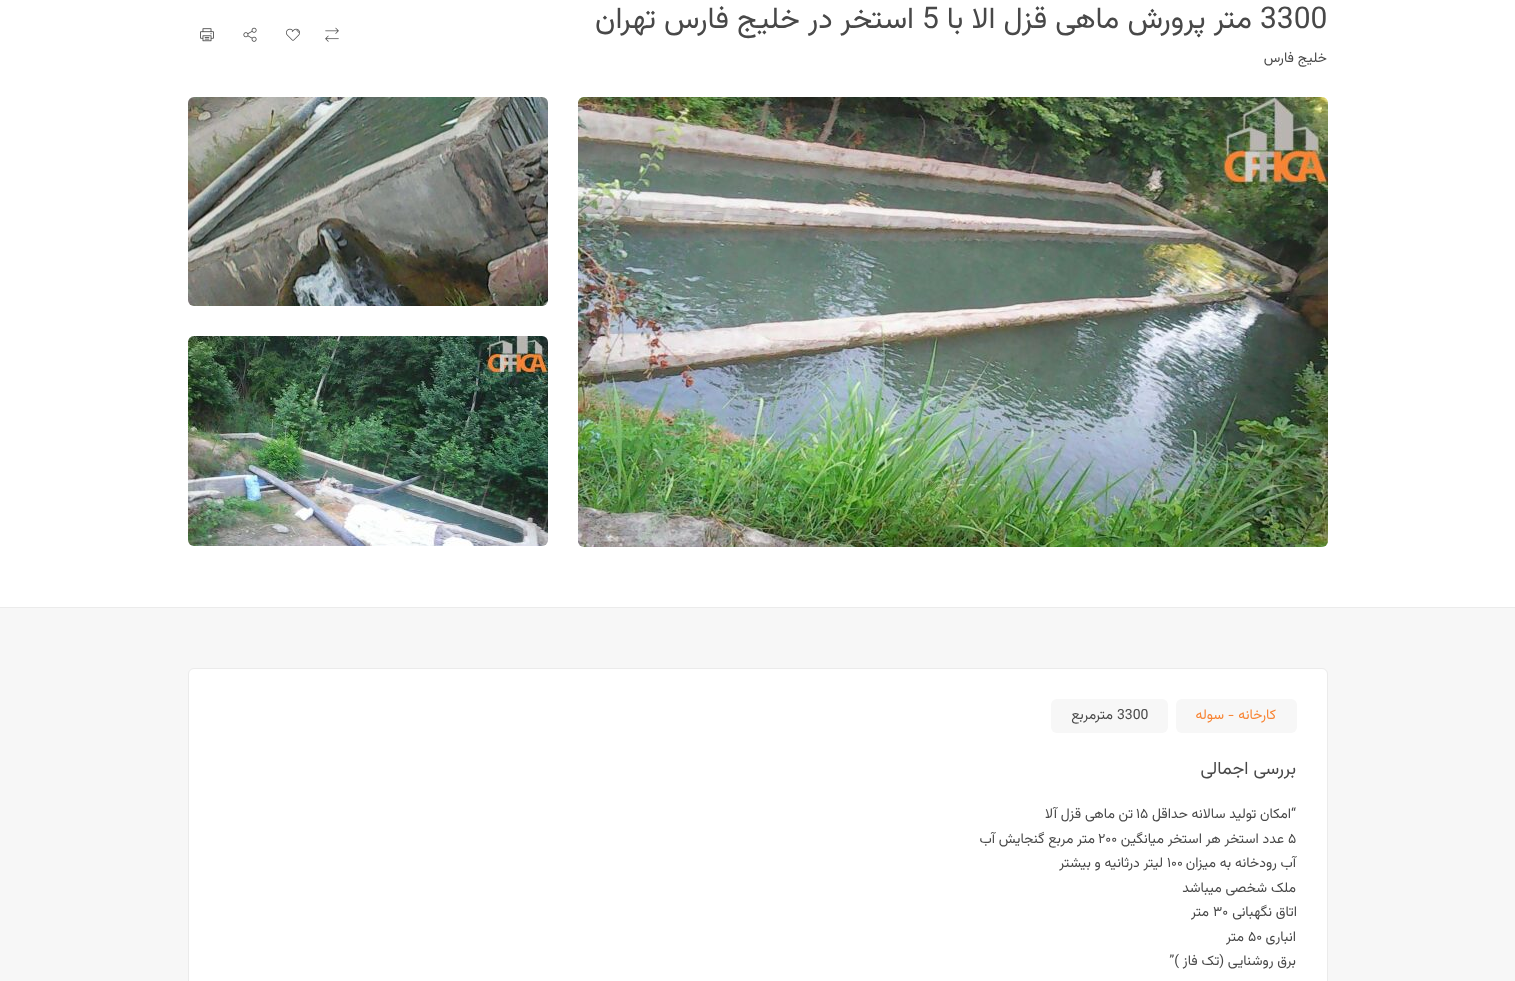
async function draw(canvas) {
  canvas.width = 1515
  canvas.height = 981
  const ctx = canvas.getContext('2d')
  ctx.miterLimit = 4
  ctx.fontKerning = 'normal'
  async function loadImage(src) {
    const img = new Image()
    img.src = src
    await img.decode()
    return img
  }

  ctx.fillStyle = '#f7f7f7'
  ctx.fillRect(0, 0, 1515, 981)
  ctx.fillStyle = '#fff'
  ctx.fillRect(0, 0, 1515, 607)
  ctx.fillStyle = '#ebebeb'
  ctx.fillRect(0, 607, 1515, 1)
  ctx.font = '30px Vazirmatn'
  ctx.fillStyle = '#484848'
  ctx.fillText('3300', 1260, 28)
  ctx.direction = 'rtl'
  ctx.fillText('متر پرورش ماهی قزل الا با', 1252, 28)
  ctx.direction = 'ltr'
  ctx.fillText('5', 922, 28)
  ctx.direction = 'rtl'
  ctx.fillText('استخر در خلیج فارس تهران', 914, 28)
  ctx.font = '14px Vazirmatn'
  ctx.fillText('خلیج فارس', 1327, 62)
  ctx.drawImage(await loadImage('image0.png'), 325, 27, 14, 15)
  ctx.drawImage(await loadImage('image1.png'), 286, 28, 14, 13)
  ctx.drawImage(await loadImage('image2.png'), 243, 27, 14, 15)
  ctx.drawImage(await loadImage('image3.png'), 200, 28, 14, 14)
  ctx.drawImage(await loadImage('image4.png'), 578, 97, 750, 450)
  ctx.drawImage(await loadImage('image5.png'), 188, 97, 360, 209)
  ctx.drawImage(await loadImage('image6.png'), 188, 336, 360, 210)
  ctx.fillStyle = '#fff'
  ctx.beginPath()
  ctx.roundRect(188.5, 668.5, 1139, 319, 5.5)
  ctx.fill()
  ctx.strokeStyle = '#ebebeb'
  ctx.stroke()
  ctx.fillStyle = '#f7f7f7'
  ctx.beginPath()
  ctx.roundRect(1176, 699, 121, 34, 6)
  ctx.fill()
  ctx.fillStyle = '#f88433'
  ctx.fillText('کارخانه - سوله', 1276, 719)
  ctx.fillStyle = '#f7f7f7'
  ctx.beginPath()
  ctx.roundRect(1051, 699, 117, 34, 6)
  ctx.fill()
  ctx.direction = 'ltr'
  ctx.fillStyle = '#484848'
  ctx.fillText('3300', 1117, 719)
  ctx.direction = 'rtl'
  ctx.fillText('مترمربع', 1113, 719)
  ctx.font = '18px Vazirmatn'
  ctx.fillText('بررسی اجمالی', 1296, 774)
  ctx.font = '14px Vazirmatn'
  ctx.fillText('“امکان تولید سالانه حداقل', 1296, 818)
  ctx.direction = 'ltr'
  ctx.fillText('۱۵', 1136, 818)
  ctx.direction = 'rtl'
  ctx.fillText('تن ماهی قزل آلا', 1133, 818)
  ctx.direction = 'ltr'
  ctx.fillText('۵', 1288, 843)
  ctx.direction = 'rtl'
  ctx.fillText('عدد استخر هر استخر میانگین', 1284, 843)
  ctx.direction = 'ltr'
  ctx.fillText('۲۰۰', 1098, 843)
  ctx.direction = 'rtl'
  ctx.fillText('متر مربع گنجایش آب', 1095, 843)
  ctx.fillText('آب رودخانه به میزان', 1296, 867)
  ctx.direction = 'ltr'
  ctx.fillText('۱۰۰', 1167, 867)
  ctx.direction = 'rtl'
  ctx.fillText('لیتر درثانیه و بیشتر', 1163, 867)
  ctx.fillText('ملک شخصی میباشد', 1296, 892)
  ctx.fillText('اتاق نگهبانی', 1297, 916)
  ctx.direction = 'ltr'
  ctx.fillText('۳۰', 1213, 916)
  ctx.direction = 'rtl'
  ctx.fillText('متر', 1209, 916)
  ctx.fillText('انباری', 1296, 941)
  ctx.direction = 'ltr'
  ctx.fillText('۵۰', 1248, 941)
  ctx.direction = 'rtl'
  ctx.fillText('متر', 1244, 941)
  ctx.fillText('برق روشنایی (تک فاز )”', 1296, 965)
}

draw(document.querySelector('canvas'))
